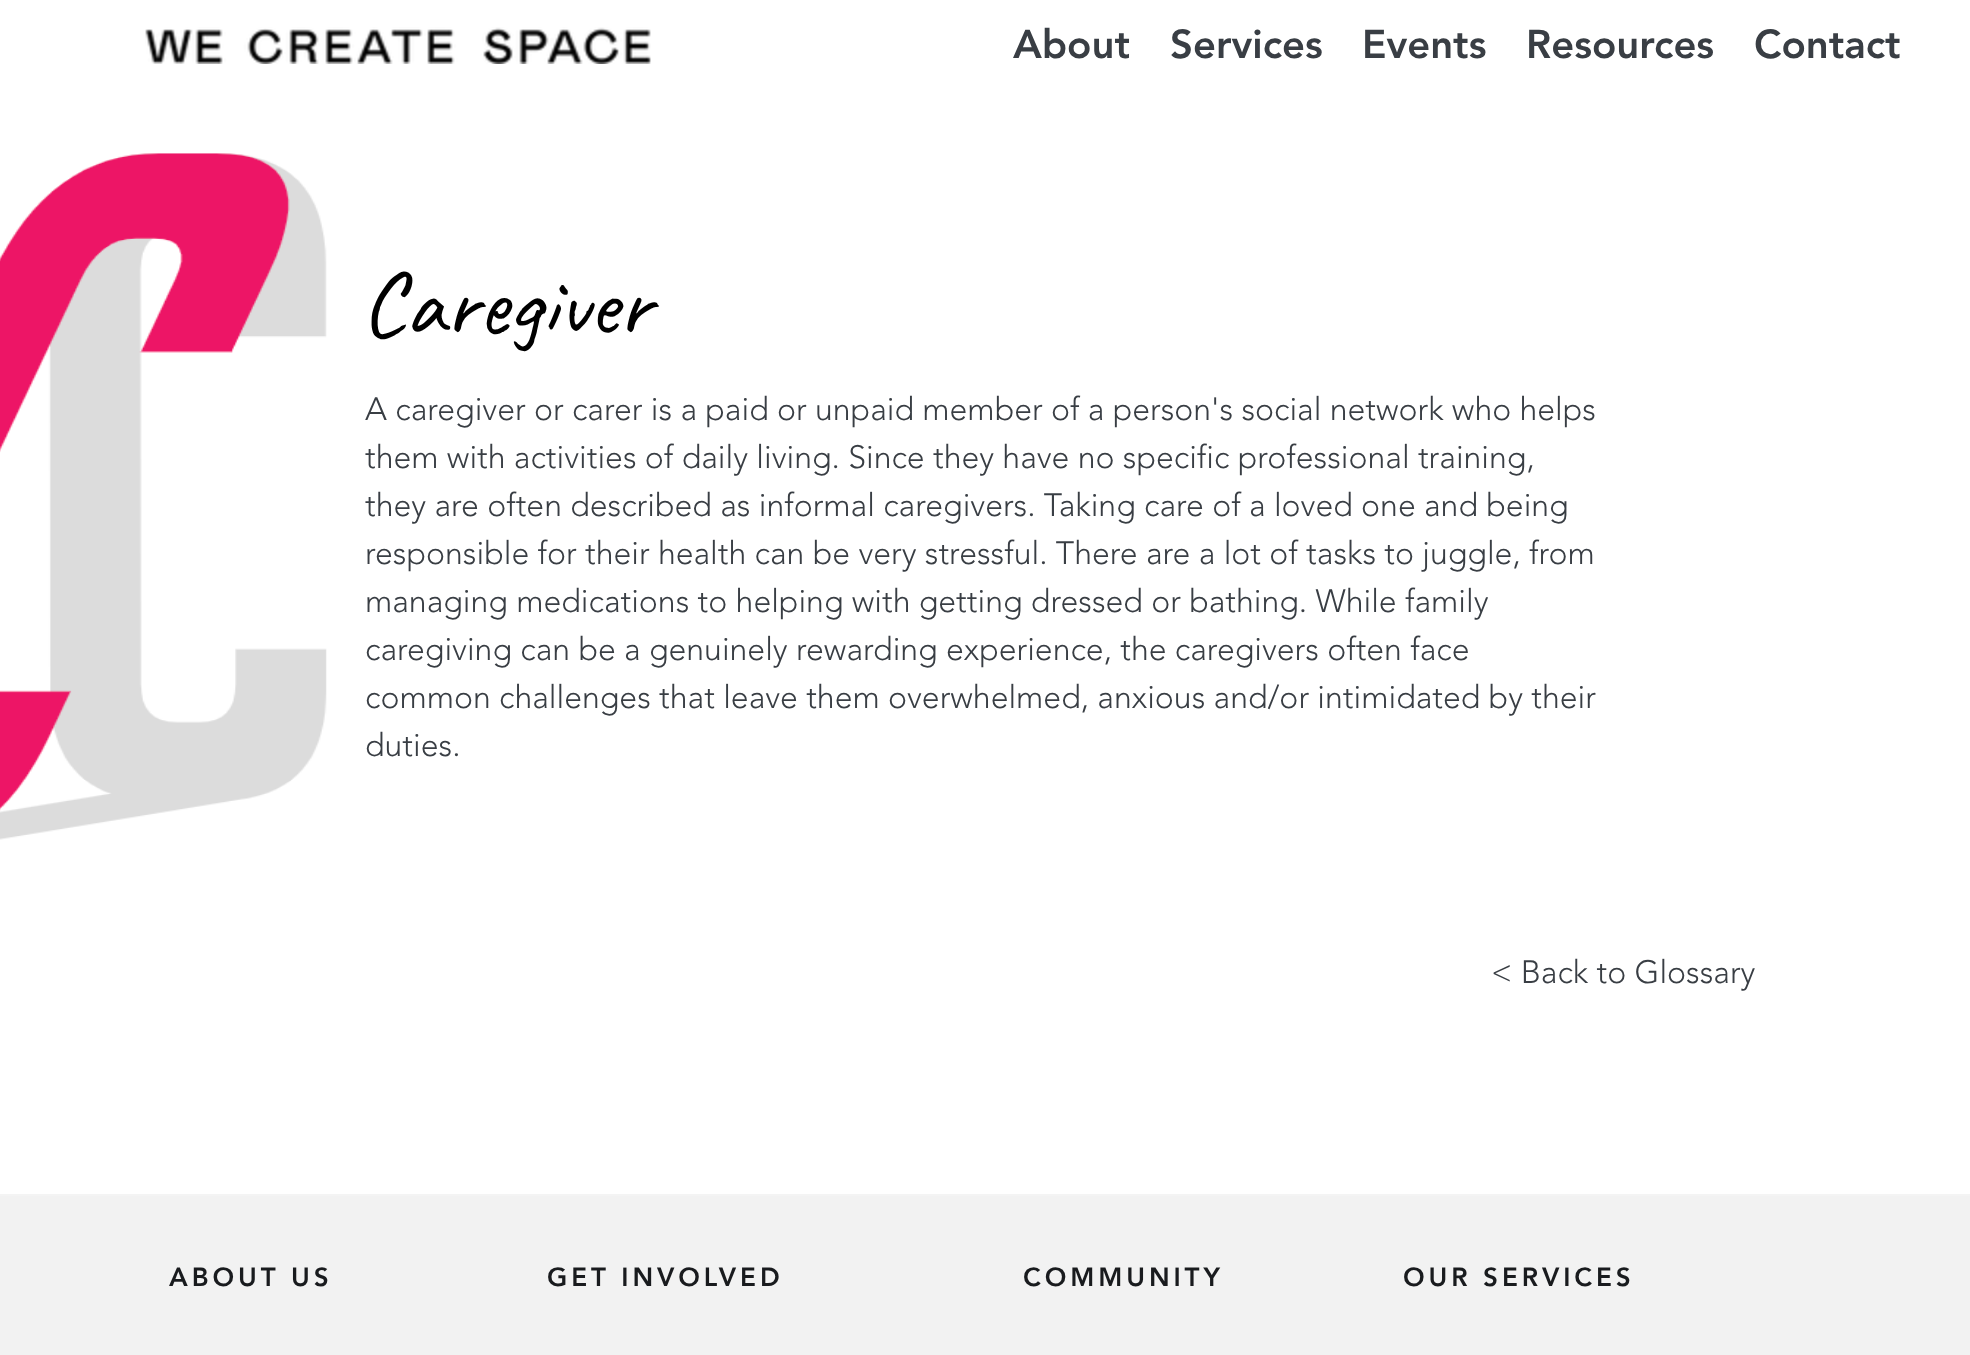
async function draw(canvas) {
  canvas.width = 1970
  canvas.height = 1355
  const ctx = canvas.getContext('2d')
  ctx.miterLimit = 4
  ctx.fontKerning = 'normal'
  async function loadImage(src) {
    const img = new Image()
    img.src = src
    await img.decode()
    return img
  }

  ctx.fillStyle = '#fff'
  ctx.fillRect(0, 0, 1970, 1355)
  ctx.drawImage(await loadImage('image0.png'), 145, 27, 506, 37)
  ctx.font = '900 40px "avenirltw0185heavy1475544"'
  ctx.fillStyle = '#393e44'
  ctx.fillText('About', 1013, 58)
  ctx.fillText('Services', 1170, 58)
  ctx.fillText('Events', 1362, 58)
  ctx.fillText('Resources', 1526, 58)
  ctx.fillText('Contact', 1754, 58)
  ctx.drawImage(await loadImage('image1.png'), 0, 153, 327, 687)
  ctx.font = '92px Caveat'
  ctx.fillStyle = '#000'
  ctx.fillText('Caregiver', 361, 334)
  ctx.font = '300 32px "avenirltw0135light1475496"'
  ctx.fillStyle = '#393e44'
  ctx.fillText('A caregiver or carer is a paid or unpaid member of a person\'s social network who helps', 365, 420)
  ctx.fillText('them with activities of daily living. Since they have no specific professional training,', 365, 468)
  ctx.fillText('they are often described as informal caregivers. Taking care of a loved one and being', 365, 516)
  ctx.fillText('responsible for their health can be very stressful. There are a lot of tasks to juggle, from', 365, 564)
  ctx.fillText('managing medications to helping with getting dressed or bathing. While family', 365, 612)
  ctx.fillText('caregiving can be a genuinely rewarding experience, the caregivers often face', 365, 660)
  ctx.fillText('common challenges that leave them overwhelmed, anxious and/or intimidated by their', 365, 708)
  ctx.fillText('duties.', 365, 756)
  ctx.fillText('< Back to Glossary', 1491, 983)
  ctx.fillStyle = '#f2f2f2'
  ctx.fillRect(0, 1196, 1970, 159)
  ctx.fillStyle = '#f4f4f4'
  ctx.fillRect(0, 1194, 1970, 2)
  ctx.letterSpacing = '3.9px'
  ctx.font = '900 26px "avenirltw0185heavy1475544"'
  ctx.fillStyle = '#191b1e'
  ctx.fillText('ABOUT US', 169, 1286)
  ctx.fillText('GET INVOLVED', 547, 1286)
  ctx.fillText('COMMUNITY', 1023, 1286)
  ctx.fillText('OUR SERVICES', 1403, 1286)
}

draw(document.querySelector('canvas'))
